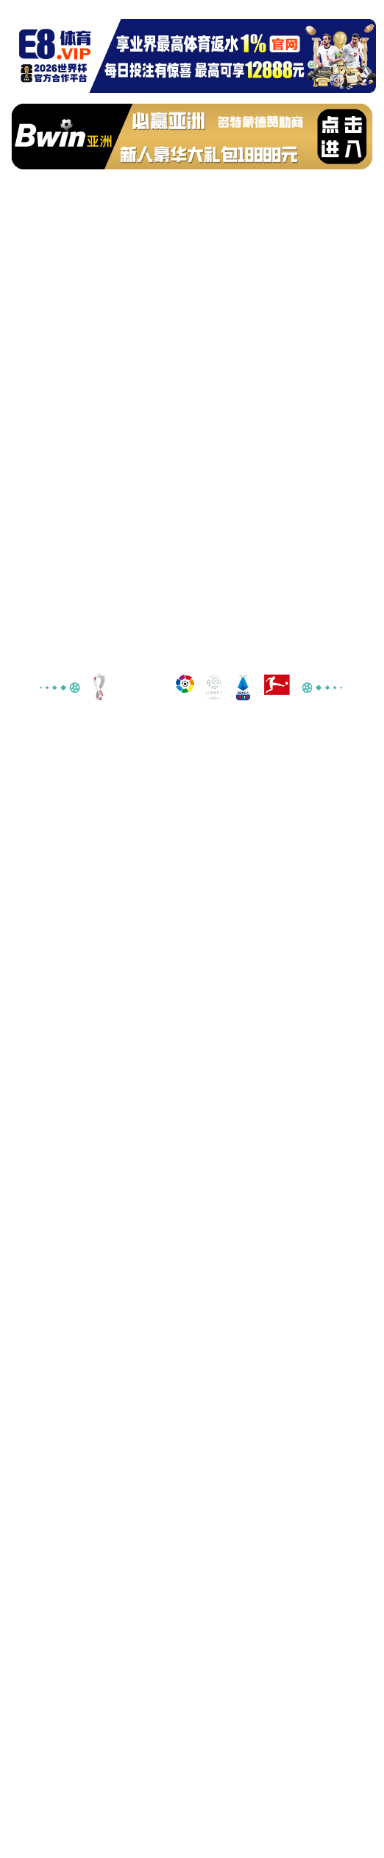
async function draw(canvas) {
  canvas.width = 384
  canvas.height = 1858
  const ctx = canvas.getContext('2d')
  ctx.miterLimit = 4
  ctx.fontKerning = 'normal'
  async function loadImage(src) {
    const img = new Image()
    img.src = src
    await img.decode()
    return img
  }

  ctx.fillStyle = '#fff'
  ctx.fillRect(0, 0, 384, 1858)
  ctx.drawImage(await loadImage('image0.png'), 11, 19, 365, 682)
}

draw(document.querySelector('canvas'))
